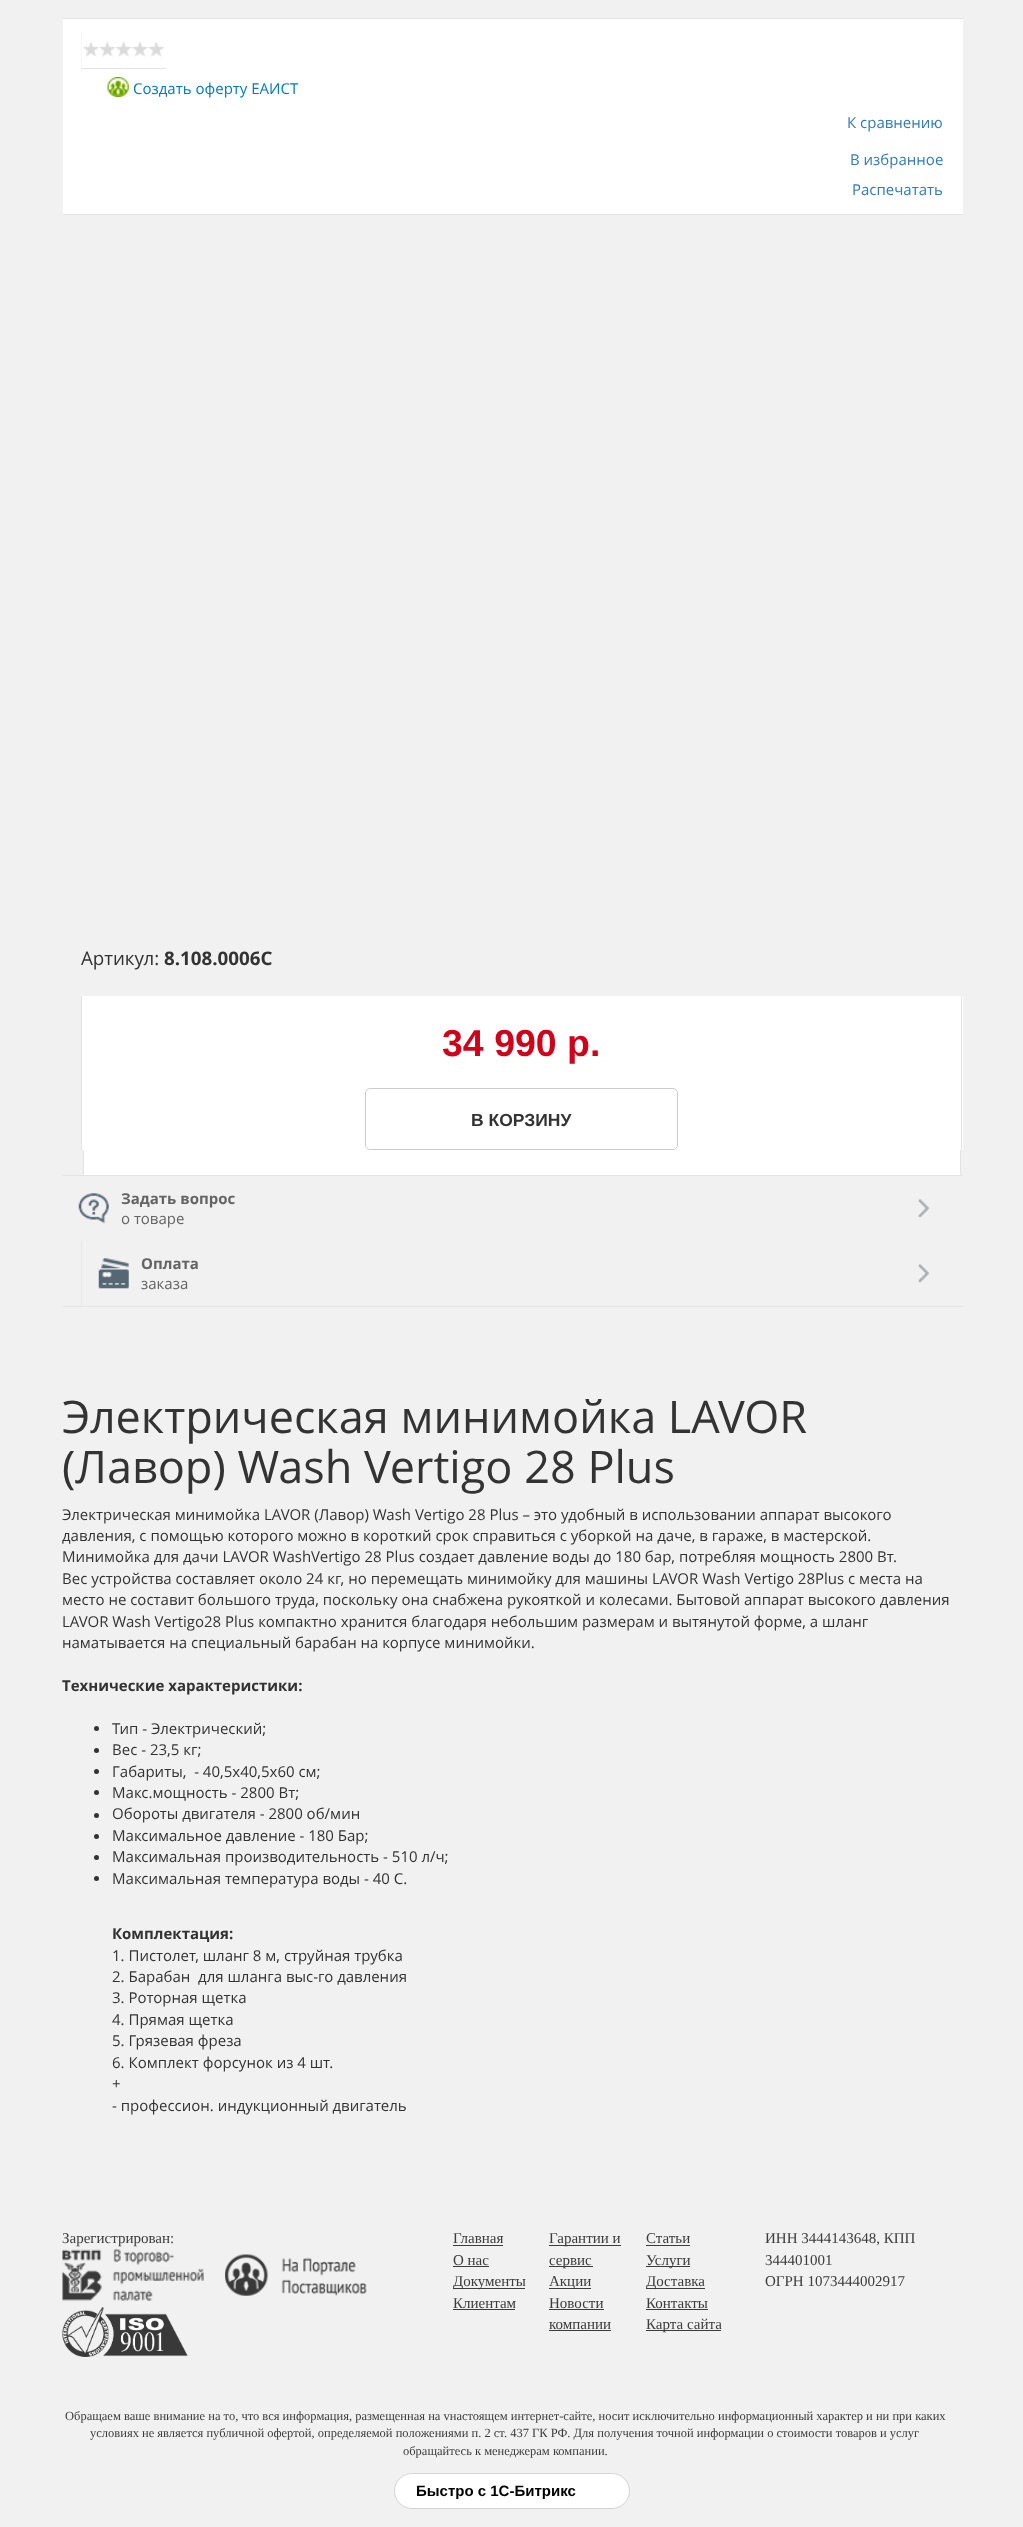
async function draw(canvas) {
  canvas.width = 1023
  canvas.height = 2527
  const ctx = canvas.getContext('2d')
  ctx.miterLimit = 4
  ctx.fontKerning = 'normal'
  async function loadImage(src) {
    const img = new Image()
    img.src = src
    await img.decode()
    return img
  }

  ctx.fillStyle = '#f2f1f2'
  ctx.fillRect(0, 0, 1023, 2527)
  ctx.fillStyle = '#fff'
  ctx.fillRect(63, 19, 900, 195)
  ctx.fillStyle = '#e4e4e4'
  ctx.fillRect(63, 18, 900, 1)
  ctx.fillRect(63, 214, 900, 1)
  ctx.fillStyle = '#dadada'
  ctx.fillRect(81, 31, 85, 38)
  ctx.drawImage(await loadImage('image0.png'), 81, 31, 85, 38)
  ctx.drawImage(await loadImage('image1.png'), 107, 77, 22, 20)
  ctx.font = '15px Open Sans'
  ctx.fillStyle = '#0078c3'
  ctx.fillText('Создать оферту ЕАИСТ', 133, 94)
  ctx.fillStyle = '#337ab7'
  ctx.fillText('К сравнению', 847, 128)
  ctx.fillText('В избранное', 850, 165)
  ctx.fillText('Распечатать', 852, 195)
  ctx.font = '18.75px Open Sans'
  ctx.fillStyle = '#333'
  ctx.fillText('Артикул:', 81, 965)
  ctx.font = 'bold 18.75px Open Sans'
  ctx.fillText('8.108.0006C', 164, 965)
  ctx.fillStyle = '#fff'
  ctx.fillRect(82, 996, 881, 154)
  ctx.fillStyle = '#e4e4e4'
  ctx.fillRect(961, 996, 1, 154)
  ctx.fillRect(81, 996, 1, 154)
  ctx.font = 'bold 37.5px Liberation Sans'
  ctx.fillStyle = '#d0021b'
  ctx.fillText('34 990 р.', 442, 1056)
  ctx.beginPath()
  ctx.roundRect(365.5, 1088.5, 312, 61, 4.5)
  ctx.strokeStyle = '#ccc'
  ctx.stroke()
  ctx.font = 'bold 17.5px Liberation Sans'
  ctx.fillStyle = '#333'
  ctx.fillText('В КОРЗИНУ', 471, 1126)
  ctx.fillStyle = '#fff'
  ctx.fillRect(84, 1150, 876, 25)
  ctx.fillStyle = '#e4e4e4'
  ctx.fillRect(960, 1150, 1, 25)
  ctx.fillRect(83, 1150, 1, 25)
  ctx.fillRect(63, 1175, 900, 1)
  ctx.fillRect(63, 1306, 900, 1)
  ctx.drawImage(await loadImage('image2.png'), 918, 1199, 11, 19)
  ctx.drawImage(await loadImage('image3.png'), 78, 1193, 31, 31)
  ctx.font = 'bold 15px Open Sans'
  ctx.fillStyle = '#646464'
  ctx.fillText('Задать вопрос', 121, 1204)
  ctx.font = '15px Open Sans'
  ctx.fillText('о товаре', 121, 1224)
  ctx.fillStyle = '#e6e6e6'
  ctx.fillRect(81, 1241, 1, 65)
  ctx.drawImage(await loadImage('image2.png'), 918, 1264, 11, 19)
  ctx.drawImage(await loadImage('image4.png'), 98, 1258, 31, 31)
  ctx.font = 'bold 15px Open Sans'
  ctx.fillStyle = '#646464'
  ctx.fillText('Оплата', 141, 1269)
  ctx.font = '15px Open Sans'
  ctx.fillText('заказа', 141, 1289)
  ctx.font = '45px Open Sans'
  ctx.fillStyle = '#333'
  ctx.fillText('Электрическая минимойка LAVOR', 62, 1433)
  ctx.fillText('(Лавор) Wash Vertigo 28 Plus', 62, 1483)
  ctx.font = '15px Open Sans'
  ctx.fillText('Электрическая минимойка LAVOR (Лавор) Wash Vertigo 28 Plus – это удобный в использовании аппарат высокого', 62, 1520)
  ctx.fillText('давления, с помощью которого можно в короткий срок справиться с уборкой на даче, в гараже, в мастерской.', 62, 1541)
  ctx.fillText('Минимойка для дачи LAVOR WashVertigo 28 Plus создает давление воды до 180 бар, потребляя мощность 2800 Вт.', 62, 1562)
  ctx.fillText('Вес устройства составляет около 24 кг, но перемещать минимойку для машины LAVOR Wash Vertigo 28Plus с места на', 62, 1584)
  ctx.fillText('место не составит большого труда, поскольку она снабжена рукояткой и колесами. Бытовой аппарат высокого давления', 62, 1605)
  ctx.fillText('LAVOR Wash Vertigo28 Plus компактно хранится благодаря небольшим размерам и вытянутой форме, а шланг', 62, 1627)
  ctx.fillText('наматывается на специальный барабан на корпусе минимойки.', 62, 1648)
  ctx.font = 'bold 15px Open Sans'
  ctx.fillText('Технические характеристики:', 62, 1691)
  ctx.beginPath()
  ctx.arc(96.5, 1728.5, 2.5, 0, 2 * Math.PI)
  ctx.fill()
  ctx.font = '15px Open Sans'
  ctx.fillText('Тип - Электрический;', 112, 1734)
  ctx.beginPath()
  ctx.arc(96.5, 1750.5, 2.5, 0, 2 * Math.PI)
  ctx.fill()
  ctx.fillText('Вес - 23,5 кг;', 112, 1755)
  ctx.beginPath()
  ctx.arc(96.5, 1771.5, 2.5, 0, 2 * Math.PI)
  ctx.fill()
  ctx.fillText('Габариты,  - 40,5х40,5х60 см;', 112, 1777)
  ctx.beginPath()
  ctx.arc(96.5, 1792.5, 2.5, 0, 2 * Math.PI)
  ctx.fill()
  ctx.fillText('Макс.мощность - 2800 Вт;', 112, 1798)
  ctx.beginPath()
  ctx.arc(96.5, 1815.5, 2.5, 0, 2 * Math.PI)
  ctx.fill()
  ctx.fillText('Обороты двигателя - 2800 об/мин', 112, 1819)
  ctx.beginPath()
  ctx.arc(96.5, 1836.5, 2.5, 0, 2 * Math.PI)
  ctx.fill()
  ctx.fillText('Максимальное давление - 180 Бар;', 112, 1841)
  ctx.beginPath()
  ctx.arc(96.5, 1857.5, 2.5, 0, 2 * Math.PI)
  ctx.fill()
  ctx.fillText('Максимальная производительность - 510 л/ч;', 112, 1862)
  ctx.beginPath()
  ctx.arc(96.5, 1878.5, 2.5, 0, 2 * Math.PI)
  ctx.fill()
  ctx.fillText('Максимальная температура воды - 40 С.', 112, 1884)
  ctx.font = 'bold 15px Open Sans'
  ctx.fillText('Комплектация:', 112, 1939)
  ctx.font = '15px Open Sans'
  ctx.fillText('1. Пистолет, шланг 8 м, струйная трубка', 112, 1961)
  ctx.fillText('2. Барабан  для шланга выс-го давления', 112, 1982)
  ctx.fillText('3. Роторная щетка', 112, 2003)
  ctx.fillText('4. Прямая щетка', 112, 2025)
  ctx.fillText('5. Грязевая фреза', 112, 2046)
  ctx.fillText('6. Комплект форсунок из 4 шт.', 112, 2068)
  ctx.fillText('+', 112, 2089)
  ctx.fillText('- профессион. индукционный двигатель', 112, 2111)
  ctx.font = '15px Liberation Serif'
  ctx.fillStyle = '#3c3c3c'
  ctx.fillText('Зарегистрирован:', 62, 2243)
  ctx.drawImage(await loadImage('image5.png'), 62, 2249, 142, 52)
  ctx.drawImage(await loadImage('image6.png'), 225, 2254, 142, 42)
  ctx.drawImage(await loadImage('image7.png'), 62, 2307, 126, 50)
  ctx.fillText('Главная', 453, 2243)
  ctx.fillRect(453, 2245, 50, 1)
  ctx.fillRect(549, 2245, 72, 1)
  ctx.fillText('Гарантии и', 549, 2243)
  ctx.fillRect(549, 2266, 44, 1)
  ctx.fillText('сервис', 549, 2265)
  ctx.fillText('Статьи', 646, 2243)
  ctx.fillRect(646, 2245, 44, 1)
  ctx.fillText('О нас', 453, 2265)
  ctx.fillRect(453, 2266, 36, 1)
  ctx.fillRect(646, 2266, 44, 1)
  ctx.fillText('Услуги', 646, 2265)
  ctx.fillRect(453, 2288, 72, 1)
  ctx.fillText('Документы', 453, 2286)
  ctx.fillRect(549, 2288, 42, 1)
  ctx.fillText('Акции', 549, 2286)
  ctx.fillRect(646, 2288, 59, 1)
  ctx.fillText('Доставка', 646, 2286)
  ctx.fillText('Клиентам', 453, 2308)
  ctx.fillRect(453, 2309, 62, 1)
  ctx.fillText('Новости', 549, 2308)
  ctx.fillRect(549, 2309, 55, 1)
  ctx.fillText('компании', 549, 2329)
  ctx.fillRect(549, 2330, 62, 1)
  ctx.fillText('Контакты', 646, 2308)
  ctx.fillRect(646, 2309, 62, 1)
  ctx.fillRect(646, 2330, 75, 1)
  ctx.fillText('Карта сайта', 646, 2329)
  ctx.fillText('ИНН 3444143648, КПП', 765, 2243)
  ctx.fillText('344401001', 765, 2265)
  ctx.fillText('ОГРН 1073444002917', 765, 2286)
  ctx.font = '12.5px Liberation Serif'
  ctx.fillText('Обращаем ваше внимание на то, что вся информация, размещенная на vнастоящем интернет-сайте, носит исключительно информационный характер и ни при каких', 65, 2420)
  ctx.fillText('условиях не является публичной офертой, определяемой положениями п. 2 ст. 437 ГК РФ. Для получения точной информации о стоимости товаров и услуг', 90, 2437)
  ctx.fillText('обращайтесь к менеджерам компании.', 403, 2455)
  ctx.fillStyle = '#fff'
  ctx.beginPath()
  ctx.roundRect(394.5, 2473.5, 235, 35, 17.5)
  ctx.fill()
  ctx.strokeStyle = '#d4d4d4'
  ctx.stroke()
  ctx.font = 'bold 15px Liberation Sans'
  ctx.fillStyle = '#000'
  ctx.fillText('Быстро с 1С-Битрикс', 416, 2496)
}

draw(document.querySelector('canvas'))
